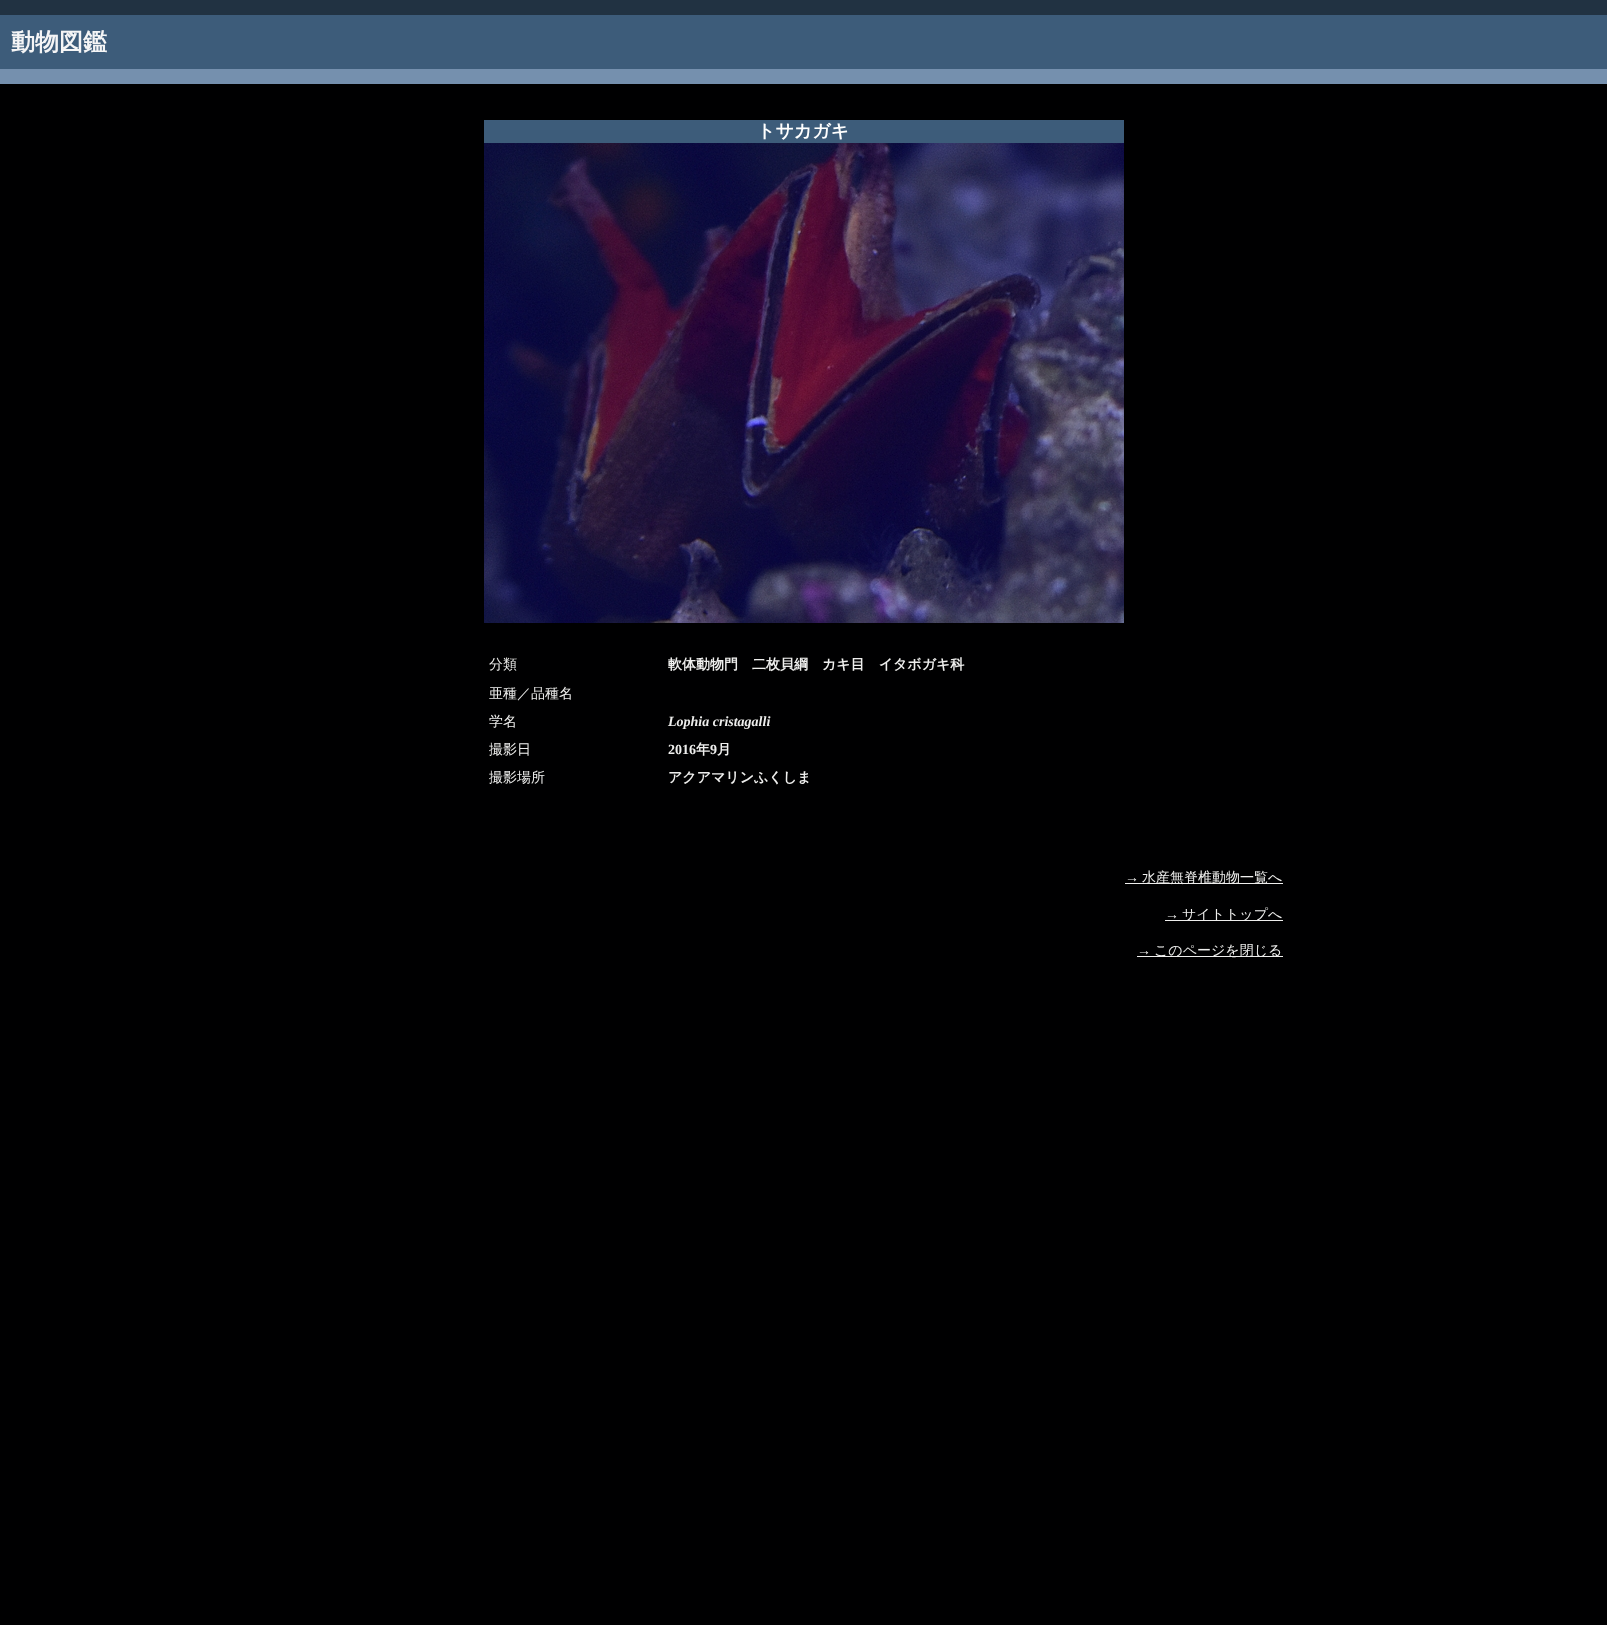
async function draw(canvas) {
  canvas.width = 1607
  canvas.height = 1625
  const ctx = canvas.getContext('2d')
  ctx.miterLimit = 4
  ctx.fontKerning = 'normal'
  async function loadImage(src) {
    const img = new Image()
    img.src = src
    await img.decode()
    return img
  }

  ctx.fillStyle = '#000001'
  ctx.fillRect(0, 0, 1607, 1625)
  ctx.fillStyle = '#213242'
  ctx.fillRect(0, 0, 1607, 15)
  ctx.fillStyle = '#3d5c7a'
  ctx.fillRect(0, 15, 1607, 54)
  ctx.font = 'bold 24px WenQuanYi Zen Hei'
  ctx.fillStyle = '#f5f5f6'
  ctx.fillText('動物図鑑', 11, 50)
  ctx.fillStyle = '#7590ae'
  ctx.fillRect(0, 69, 1607, 15)
  ctx.fillStyle = '#3d5c7a'
  ctx.fillRect(484, 120, 640, 23)
  ctx.font = 'bold 18px WenQuanYi Zen Hei'
  ctx.fillStyle = '#fff'
  ctx.fillText('トサカガキ', 757, 137)
  ctx.drawImage(await loadImage('image0.png'), 484, 143, 640, 480)
  ctx.font = '500 14px WenQuanYi Zen Hei'
  ctx.fillStyle = '#eeeeed'
  ctx.fillText('分類', 489, 669)
  ctx.font = 'bold 14px WenQuanYi Zen Hei'
  ctx.fillText('軟体動物門　二枚貝綱　カキ目　イタボガキ科', 668, 669)
  ctx.font = '500 14px WenQuanYi Zen Hei'
  ctx.fillText('亜種／品種名', 489, 698)
  ctx.fillText('学名', 489, 726)
  ctx.font = 'italic bold 14px Liberation Serif'
  ctx.fillText('Lophia cristagalli', 668, 726)
  ctx.font = '500 14px WenQuanYi Zen Hei'
  ctx.fillText('撮影日', 489, 754)
  ctx.font = 'bold 14px Liberation Serif'
  ctx.fillText('2016', 668, 754)
  ctx.font = 'bold 14px WenQuanYi Zen Hei'
  ctx.fillText('年', 696, 754)
  ctx.font = 'bold 14px Liberation Serif'
  ctx.fillText('9', 710, 754)
  ctx.font = 'bold 14px WenQuanYi Zen Hei'
  ctx.fillText('月', 717, 754)
  ctx.font = '500 14px WenQuanYi Zen Hei'
  ctx.fillText('撮影場所', 489, 782)
  ctx.font = 'bold 14px WenQuanYi Zen Hei'
  ctx.fillText('アクアマリンふくしま', 668, 782)
  ctx.font = '14px Liberation Serif'
  ctx.fillText('→', 1125, 882)
  ctx.fillRect(1125, 883, 158, 1)
  ctx.font = '500 14px WenQuanYi Zen Hei'
  ctx.fillText('水産無脊椎動物一覧へ', 1142, 882)
  ctx.font = '14px Liberation Serif'
  ctx.fillText('→', 1165, 919)
  ctx.fillRect(1165, 920, 118, 1)
  ctx.font = '500 14px WenQuanYi Zen Hei'
  ctx.fillText('サイトトップへ', 1182, 919)
  ctx.font = '14px Liberation Serif'
  ctx.fillText('→', 1137, 955)
  ctx.fillRect(1137, 956, 146, 1)
  ctx.font = '500 14px WenQuanYi Zen Hei'
  ctx.fillText('このページを閉じる', 1154, 955)
}

draw(document.querySelector('canvas'))
